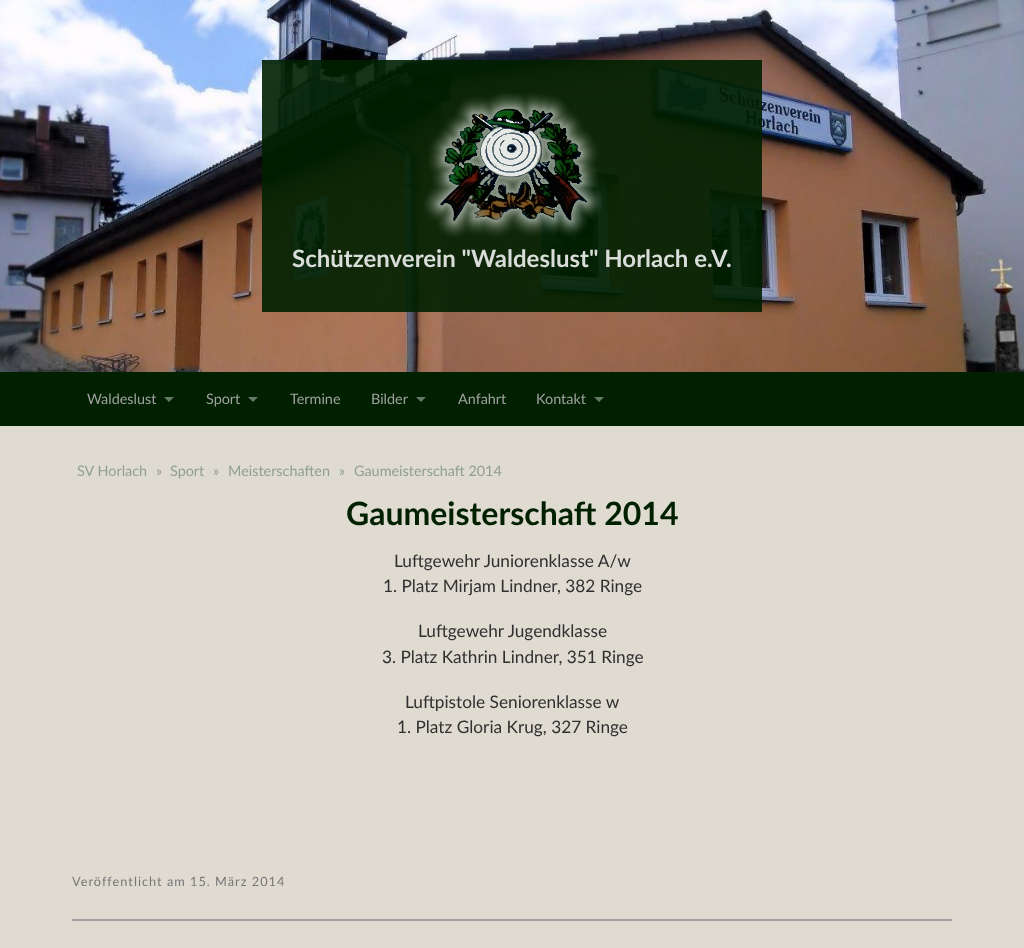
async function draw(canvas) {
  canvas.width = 1024
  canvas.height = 948
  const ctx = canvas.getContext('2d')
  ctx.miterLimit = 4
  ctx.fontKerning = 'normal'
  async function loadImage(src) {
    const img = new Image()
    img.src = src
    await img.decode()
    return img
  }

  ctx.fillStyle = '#e0dbd1'
  ctx.fillRect(0, 0, 1024, 948)
  ctx.drawImage(await loadImage('image0.png'), 0, 0, 1024, 372)
  ctx.fillStyle = '#002000e6'
  ctx.fillRect(262, 60, 500, 252)
  ctx.drawImage(await loadImage('image1.png'), 424, 93, 179, 144)
  ctx.font = 'bold 24px Lato'
  ctx.fillStyle = '#d9dcd9'
  ctx.fillText('Schützenverein "Waldeslust" Horlach e.V.', 292, 267)
  ctx.fillStyle = '#002000'
  ctx.fillRect(0, 372, 1024, 54)
  ctx.font = '14.4px Lato'
  ctx.fillStyle = '#a0a0a0'
  ctx.fillText('Waldeslust', 87, 404)
  ctx.fillStyle = '#667966'
  ctx.beginPath()
  ctx.moveTo(164, 397)
  ctx.lineTo(174, 397)
  ctx.lineTo(169, 402)
  ctx.closePath()
  ctx.fill()
  ctx.fillStyle = '#a0a0a0'
  ctx.fillText('Sport', 206, 404)
  ctx.fillStyle = '#667966'
  ctx.beginPath()
  ctx.moveTo(248, 397)
  ctx.lineTo(258, 397)
  ctx.lineTo(253, 402)
  ctx.closePath()
  ctx.fill()
  ctx.fillStyle = '#a0a0a0'
  ctx.fillText('Termine', 290, 404)
  ctx.fillText('Bilder', 371, 404)
  ctx.fillStyle = '#667966'
  ctx.beginPath()
  ctx.moveTo(416, 397)
  ctx.lineTo(426, 397)
  ctx.lineTo(421, 402)
  ctx.closePath()
  ctx.fill()
  ctx.fillStyle = '#a0a0a0'
  ctx.fillText('Anfahrt', 458, 404)
  ctx.fillText('Kontakt', 536, 404)
  ctx.fillStyle = '#667966'
  ctx.beginPath()
  ctx.moveTo(594, 397)
  ctx.lineTo(604, 397)
  ctx.lineTo(599, 402)
  ctx.closePath()
  ctx.fill()
  ctx.fillStyle = '#90a090'
  ctx.fillText('SV Horlach', 77, 476)
  ctx.fillText('»', 156, 476)
  ctx.fillText('Sport', 170, 476)
  ctx.fillText('»', 213, 476)
  ctx.fillText('Meisterschaften', 228, 476)
  ctx.fillText('»', 339, 476)
  ctx.fillText('Gaumeisterschaft 2014', 354, 476)
  ctx.font = 'bold 32px Lato'
  ctx.fillStyle = '#002000'
  ctx.fillText('Gaumeisterschaft 2014', 346, 525)
  ctx.font = '17.25px Lato'
  ctx.fillStyle = '#303030'
  ctx.fillText('Luftgewehr Juniorenklasse A/w', 394, 567)
  ctx.fillText('1. Platz Mirjam Lindner, 382 Ringe', 383, 592)
  ctx.fillText('Luftgewehr Jugendklasse', 418, 637)
  ctx.fillText('3. Platz Kathrin Lindner, 351 Ringe', 382, 663)
  ctx.fillText('Luftpistole Seniorenklasse w', 405, 708)
  ctx.fillText('1. Platz Gloria Krug, 327 Ringe', 397, 733)
  ctx.letterSpacing = '1px'
  ctx.font = '12.75px Lato'
  ctx.fillStyle = '#777'
  ctx.fillText('Veröffentlicht am 15. März 2014', 72, 886)
  ctx.fillStyle = '#a0a0a0'
  ctx.fillRect(72, 919, 880, 2)
}

draw(document.querySelector('canvas'))
